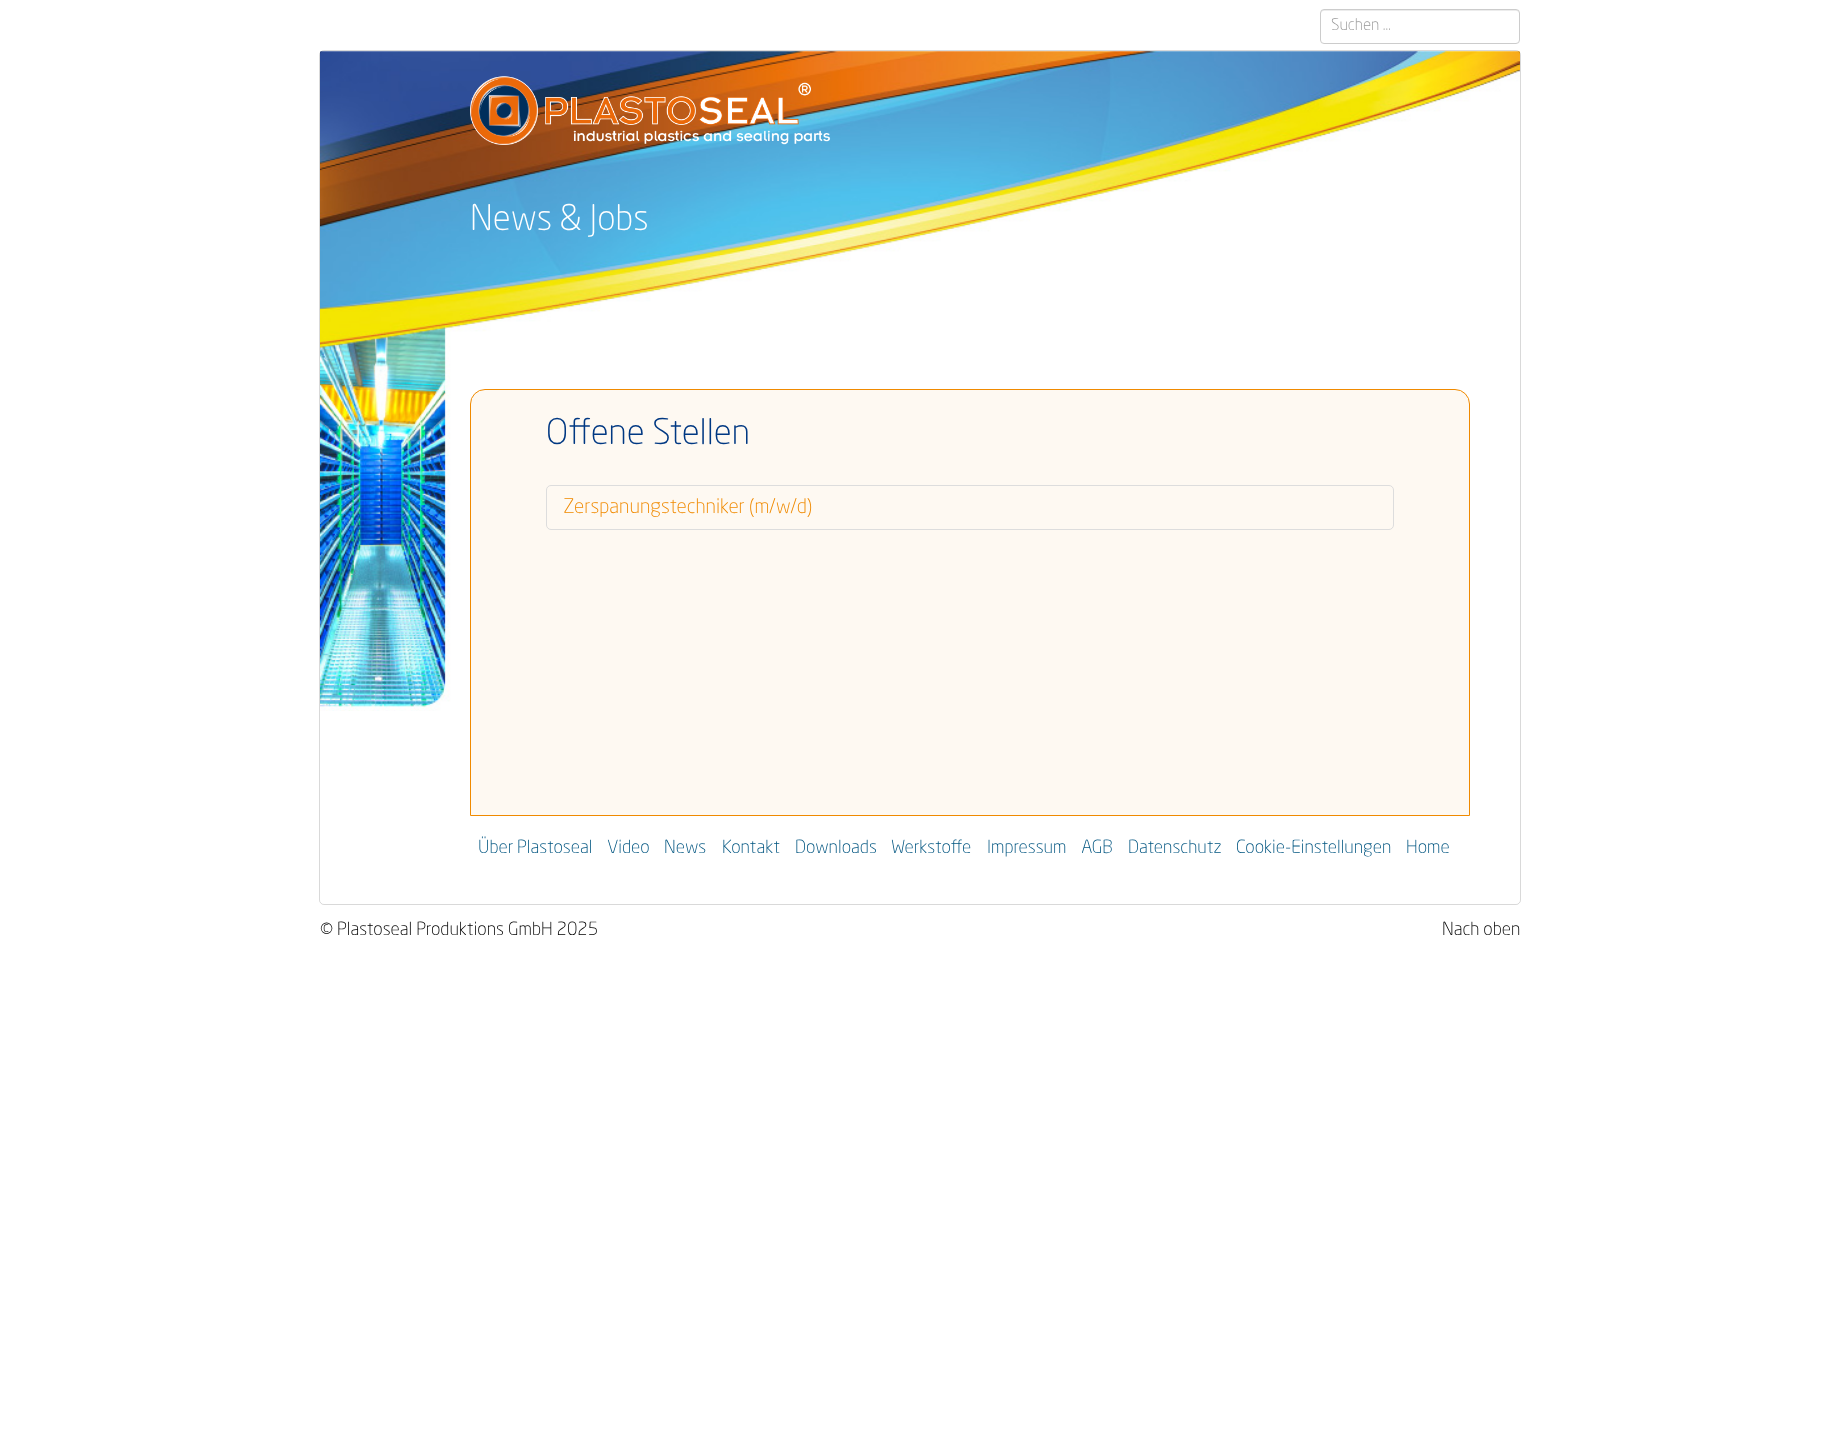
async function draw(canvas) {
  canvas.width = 1839
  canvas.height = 1445
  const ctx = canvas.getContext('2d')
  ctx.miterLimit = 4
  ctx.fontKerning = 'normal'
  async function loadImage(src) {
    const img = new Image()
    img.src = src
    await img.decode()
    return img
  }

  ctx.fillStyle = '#fff'
  ctx.fillRect(0, 0, 1839, 1445)
  ctx.fillStyle = '#ececec'
  ctx.beginPath()
  ctx.moveTo(1324, 11)
  ctx.lineTo(1516, 11)
  ctx.bezierCurveTo(1518, 11, 1519, 12, 1519, 14)
  ctx.bezierCurveTo(1519, 12, 1519, 10, 1516, 10)
  ctx.lineTo(1324, 10)
  ctx.bezierCurveTo(1321, 10, 1321, 12, 1321, 14)
  ctx.bezierCurveTo(1321, 12, 1322, 11, 1324, 11)
  ctx.closePath()
  ctx.fill()
  ctx.beginPath()
  ctx.roundRect(1320.5, 9.5, 199, 34, 3.5)
  ctx.strokeStyle = '#ccc'
  ctx.stroke()
  ctx.font = '300 16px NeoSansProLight'
  ctx.fillStyle = '#999'
  ctx.fillText('Suchen ...', 1331, 30)
  ctx.drawImage(await loadImage('image0.png'), 320, 51, 1200, 660)
  ctx.beginPath()
  ctx.roundRect(319.5, 50.5, 1201, 854, 4.5)
  ctx.strokeStyle = '#00000026'
  ctx.stroke()
  ctx.drawImage(await loadImage('image1.png'), 470, 76, 361, 69)
  ctx.font = '300 35px NeoSansProLight'
  ctx.fillStyle = '#fff'
  ctx.fillText('News & Jobs', 470, 230)
  ctx.fillStyle = '#fef9f2'
  ctx.beginPath()
  ctx.roundRect(470.5, 389.5, 999, 426, [14.5, 14.5, 0, 0])
  ctx.fill()
  ctx.strokeStyle = '#f08a00'
  ctx.stroke()
  ctx.fillStyle = '#003882'
  ctx.fillText('Offene Stellen', 546, 444)
  ctx.beginPath()
  ctx.roundRect(546.5, 485.5, 847, 44, 4.5)
  ctx.strokeStyle = '#ddd'
  ctx.stroke()
  ctx.font = '300 20px NeoSansProLight'
  ctx.fillStyle = '#f08a00'
  ctx.fillText('Zerspanungstechniker (m/w/d)', 563, 513)
  ctx.font = '300 18px NeoSansProLight'
  ctx.fillStyle = '#005580'
  ctx.fillText('Über Plastoseal', 478, 853)
  ctx.fillText('Video', 607, 853)
  ctx.fillText('News', 664, 853)
  ctx.fillText('Kontakt', 722, 853)
  ctx.fillText('Downloads', 795, 853)
  ctx.fillText('Werkstoffe', 891, 853)
  ctx.fillText('Impressum', 987, 853)
  ctx.fillText('AGB', 1081, 853)
  ctx.fillText('Datenschutz', 1128, 853)
  ctx.fillText('Cookie-Einstellungen', 1236, 853)
  ctx.fillText('Home', 1406, 853)
  ctx.fillStyle = '#000'
  ctx.fillText('© Plastoseal Produktions GmbH 2025', 320, 935)
  ctx.fillText('Nach oben', 1442, 935)
}

draw(document.querySelector('canvas'))
